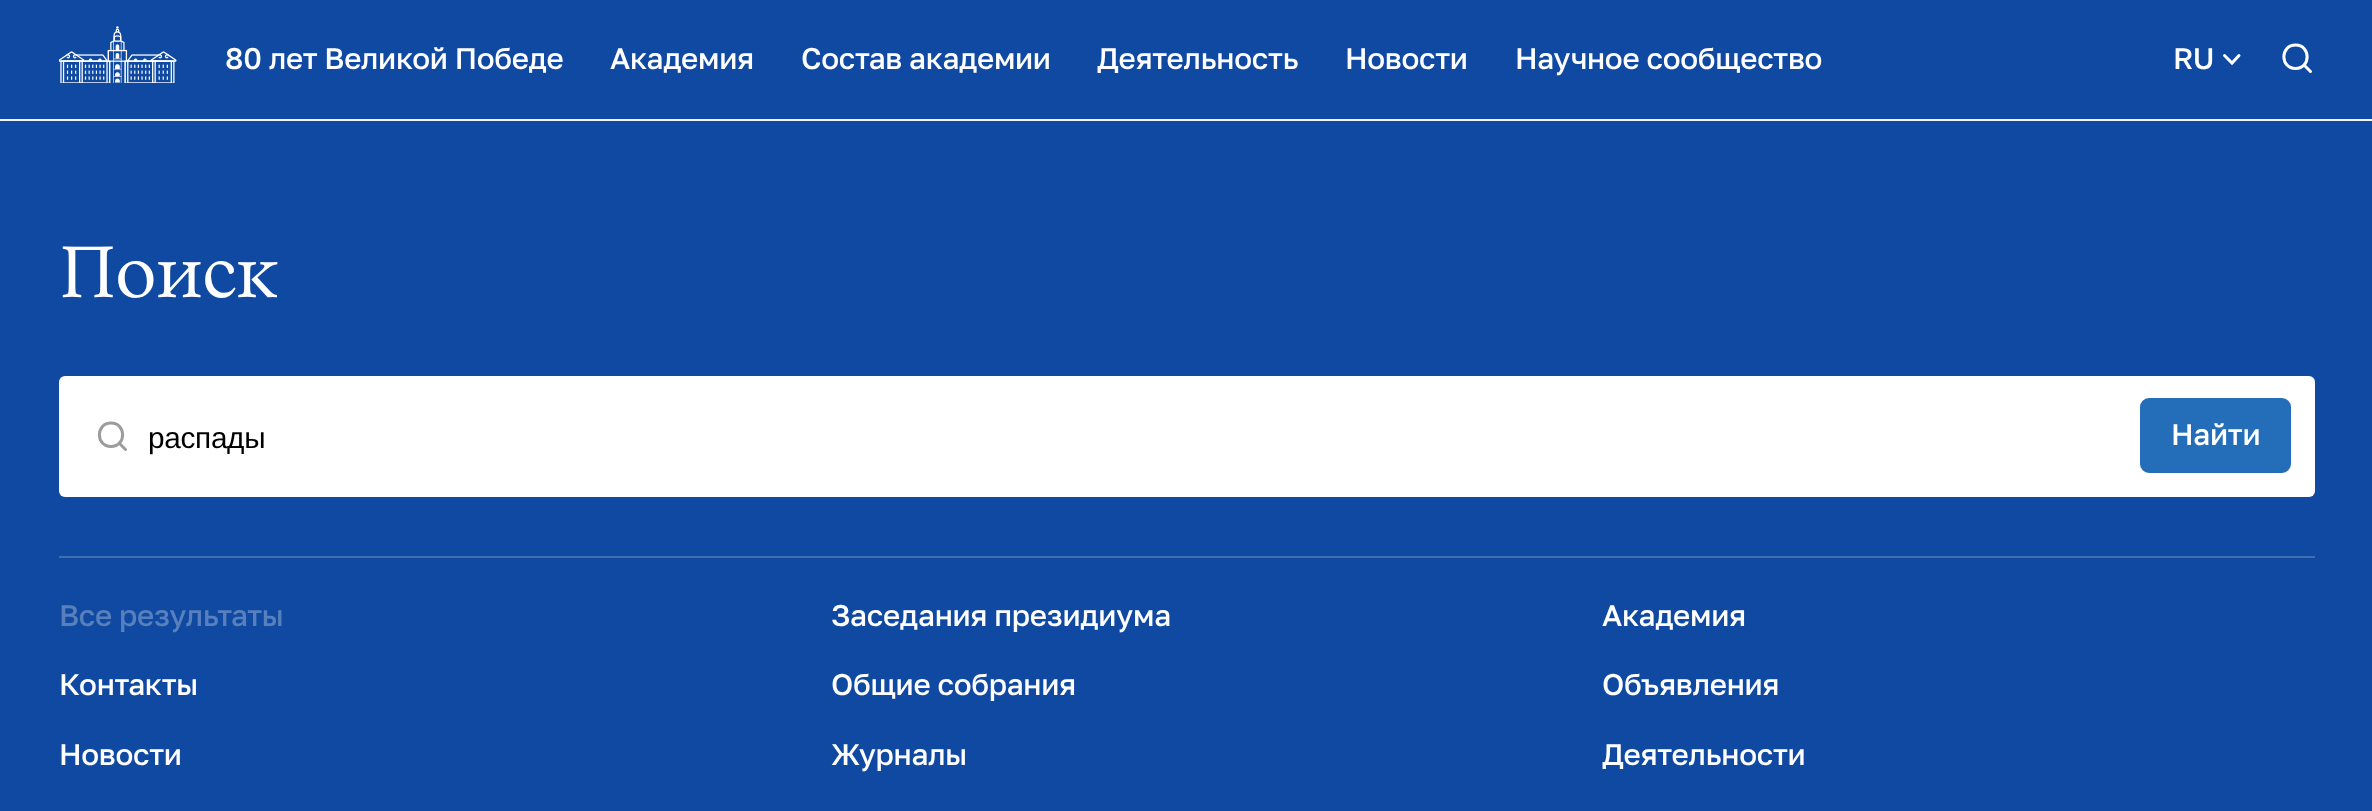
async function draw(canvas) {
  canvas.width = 2372
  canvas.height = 811
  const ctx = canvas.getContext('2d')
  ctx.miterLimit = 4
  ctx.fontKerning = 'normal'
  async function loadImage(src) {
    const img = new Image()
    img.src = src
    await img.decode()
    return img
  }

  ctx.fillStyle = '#0f49a1'
  ctx.fillRect(0, 0, 2372, 811)
  ctx.fillStyle = '#f3f3f3'
  ctx.fillRect(0, 119, 2372, 2)
  ctx.drawImage(await loadImage('image0.png'), 59, 26, 118, 57)
  ctx.letterSpacing = '-0.3px'
  ctx.font = '500 29.75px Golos'
  ctx.fillStyle = '#fff'
  ctx.fillText('80 лет Великой Победе', 225, 69)
  ctx.fillText('Академия', 610, 69)
  ctx.fillText('Состав академии', 801, 69)
  ctx.fillText('Деятельность', 1097, 69)
  ctx.fillText('Новости', 1345, 69)
  ctx.fillText('Научное сообщество', 1515, 69)
  ctx.fillText('RU', 2173, 69)
  ctx.beginPath()
  ctx.moveTo(2224.5, 55.5)
  ctx.lineTo(2232, 63)
  ctx.lineTo(2239, 55.5)
  ctx.strokeStyle = '#fff'
  ctx.lineWidth = 3
  ctx.lineCap = 'round'
  ctx.stroke()
  ctx.beginPath()
  ctx.moveTo(2295.5, 68.5)
  ctx.bezierCurveTo(2311, 68.5, 2311, 45, 2295.5, 45)
  ctx.bezierCurveTo(2280, 45, 2280, 68.5, 2295.5, 68.5)
  ctx.closePath()
  ctx.moveTo(2310.5, 71.5)
  ctx.lineTo(2304, 65)
  ctx.lineJoin = 'round'
  ctx.stroke()
  ctx.letterSpacing = '-2.25px'
  ctx.font = '300 74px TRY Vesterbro'
  ctx.fillText('Поиск', 59, 297)
  ctx.beginPath()
  ctx.roundRect(59, 376, 2256, 121, 6)
  ctx.fill()
  ctx.beginPath()
  ctx.moveTo(111, 446.5)
  ctx.bezierCurveTo(126.5, 446.5, 126.5, 423, 111, 423)
  ctx.bezierCurveTo(95.5, 423, 95.5, 446.5, 111, 446.5)
  ctx.closePath()
  ctx.moveTo(125.5, 449.5)
  ctx.lineTo(119, 443)
  ctx.strokeStyle = '#9c9c9c'
  ctx.stroke()
  ctx.letterSpacing = '-0.3px'
  ctx.font = '29.75px Liberation Sans'
  ctx.fillStyle = '#000'
  ctx.fillText('распады', 148, 448)
  ctx.fillStyle = '#246eb9'
  ctx.beginPath()
  ctx.roundRect(2142.5, 400.5, 146, 70, 6.5)
  ctx.fill()
  ctx.strokeStyle = '#246eb9'
  ctx.lineWidth = 5
  ctx.lineJoin = 'miter'
  ctx.stroke()
  ctx.font = '500 29.75px Golos'
  ctx.fillStyle = '#fff'
  ctx.fillText('Найти', 2171, 445)
  ctx.fillStyle = '#3f6db0'
  ctx.fillRect(59, 556, 2256, 2)
  ctx.fillStyle = '#5780bd'
  ctx.fillText('Все результаты', 59, 626)
  ctx.fillStyle = '#fff'
  ctx.fillText('Заседания президиума', 831, 626)
  ctx.fillText('Академия', 1602, 626)
  ctx.fillText('Контакты', 59, 695)
  ctx.fillText('Общие собрания', 831, 695)
  ctx.fillText('Объявления', 1602, 695)
  ctx.fillText('Новости', 59, 765)
  ctx.fillText('Журналы', 831, 765)
  ctx.fillText('Деятельности', 1602, 765)
}

draw(document.querySelector('canvas'))
